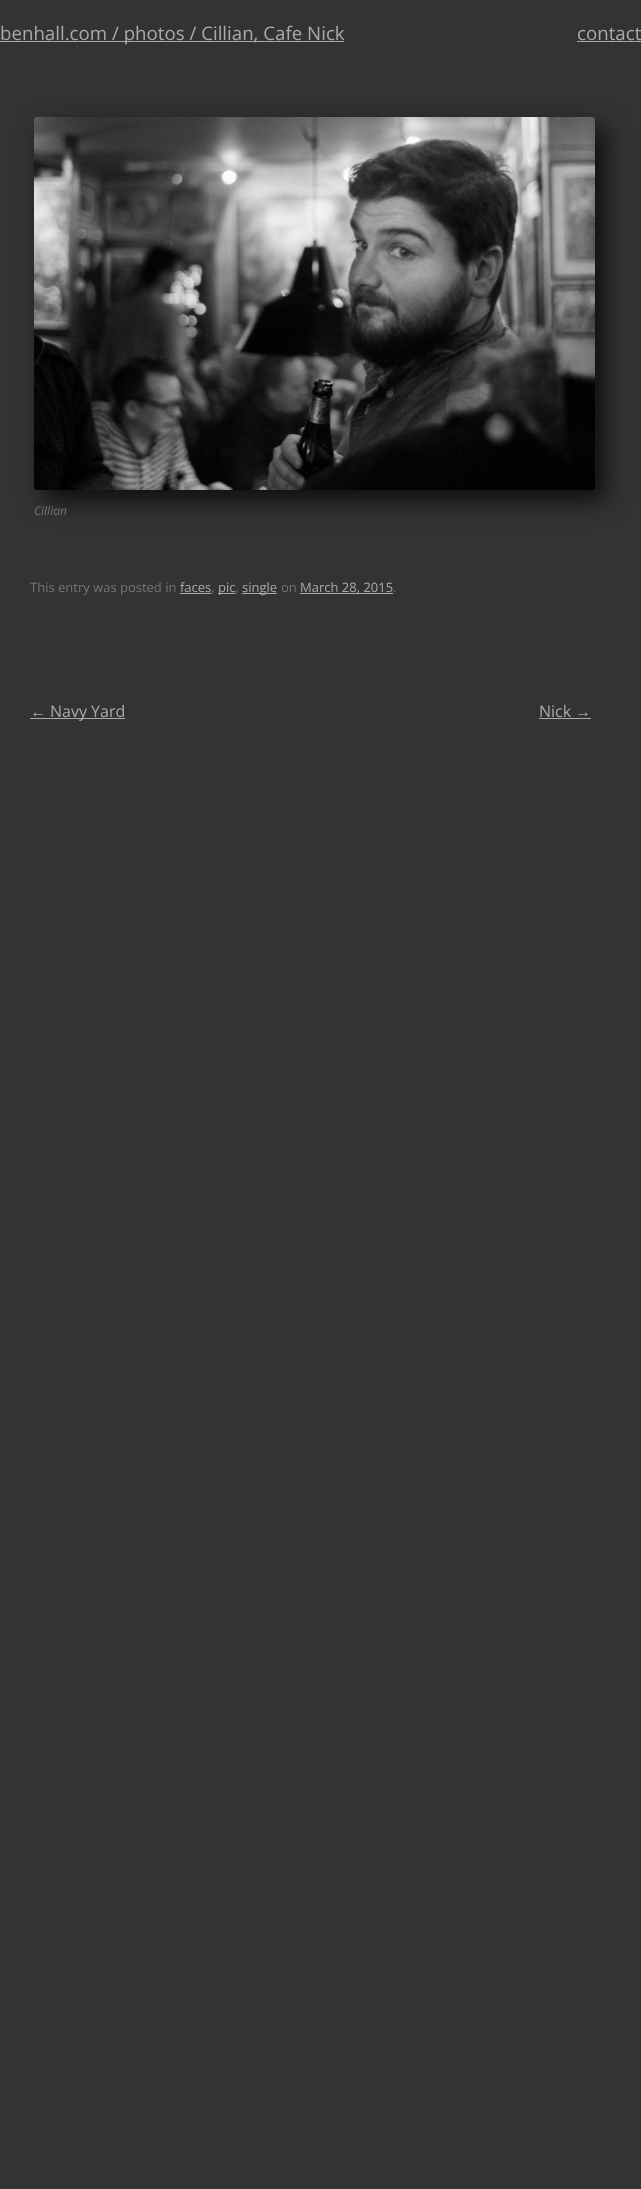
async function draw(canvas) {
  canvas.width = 641
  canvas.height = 2189
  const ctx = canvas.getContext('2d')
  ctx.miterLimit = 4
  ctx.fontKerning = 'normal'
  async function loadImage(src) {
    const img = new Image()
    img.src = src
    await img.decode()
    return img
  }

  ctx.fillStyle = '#333'
  ctx.fillRect(0, 0, 641, 2189)
  ctx.fillStyle = '#aaa'
  ctx.fillRect(0, 41, 344, 1)
  ctx.font = '18.7px Open Sans'
  ctx.fillText('benhall.com / photos / Cillian, Cafe Nick', 0, 40)
  ctx.fillText('contact', 577, 40)
  ctx.fillRect(577, 41, 64, 1)
  ctx.fillStyle = '#000000bf'
  ctx.filter = 'blur(12.5px)'
  ctx.beginPath()
  ctx.roundRect(44, 127, 561, 373, 3)
  ctx.fill()
  ctx.filter = 'none'
  ctx.drawImage(await loadImage('image0.png'), 34, 117, 561, 373)
  ctx.font = 'italic 12px Open Sans'
  ctx.fillStyle = '#757575'
  ctx.fillText('Cillian', 34, 515)
  ctx.font = '13px Open Sans'
  ctx.fillText('This entry was posted in', 30, 592)
  ctx.fillStyle = '#aaa'
  ctx.fillText('faces', 180, 592)
  ctx.fillRect(180, 593, 31, 1)
  ctx.fillStyle = '#757575'
  ctx.fillText(',', 211, 592)
  ctx.fillStyle = '#aaa'
  ctx.fillRect(218, 593, 17, 1)
  ctx.fillText('pic', 218, 592)
  ctx.fillStyle = '#757575'
  ctx.fillText(',', 235, 592)
  ctx.fillStyle = '#aaa'
  ctx.fillRect(242, 593, 35, 1)
  ctx.fillText('single', 242, 592)
  ctx.fillStyle = '#757575'
  ctx.fillText('on', 281, 592)
  ctx.fillStyle = '#aaa'
  ctx.fillRect(300, 593, 93, 1)
  ctx.fillText('March 28, 2015', 300, 592)
  ctx.fillStyle = '#757575'
  ctx.fillText('.', 393, 592)
  ctx.font = '16px Liberation Sans'
  ctx.fillStyle = '#aaa'
  ctx.fillText('←', 30, 717)
  ctx.fillRect(30, 718, 95, 1)
  ctx.font = '16px Open Sans'
  ctx.fillText('Navy Yard', 50, 717)
  ctx.fillText('Nick', 539, 717)
  ctx.font = '16px Liberation Sans'
  ctx.fillText('→', 575, 717)
  ctx.fillRect(539, 718, 52, 1)
}

draw(document.querySelector('canvas'))
